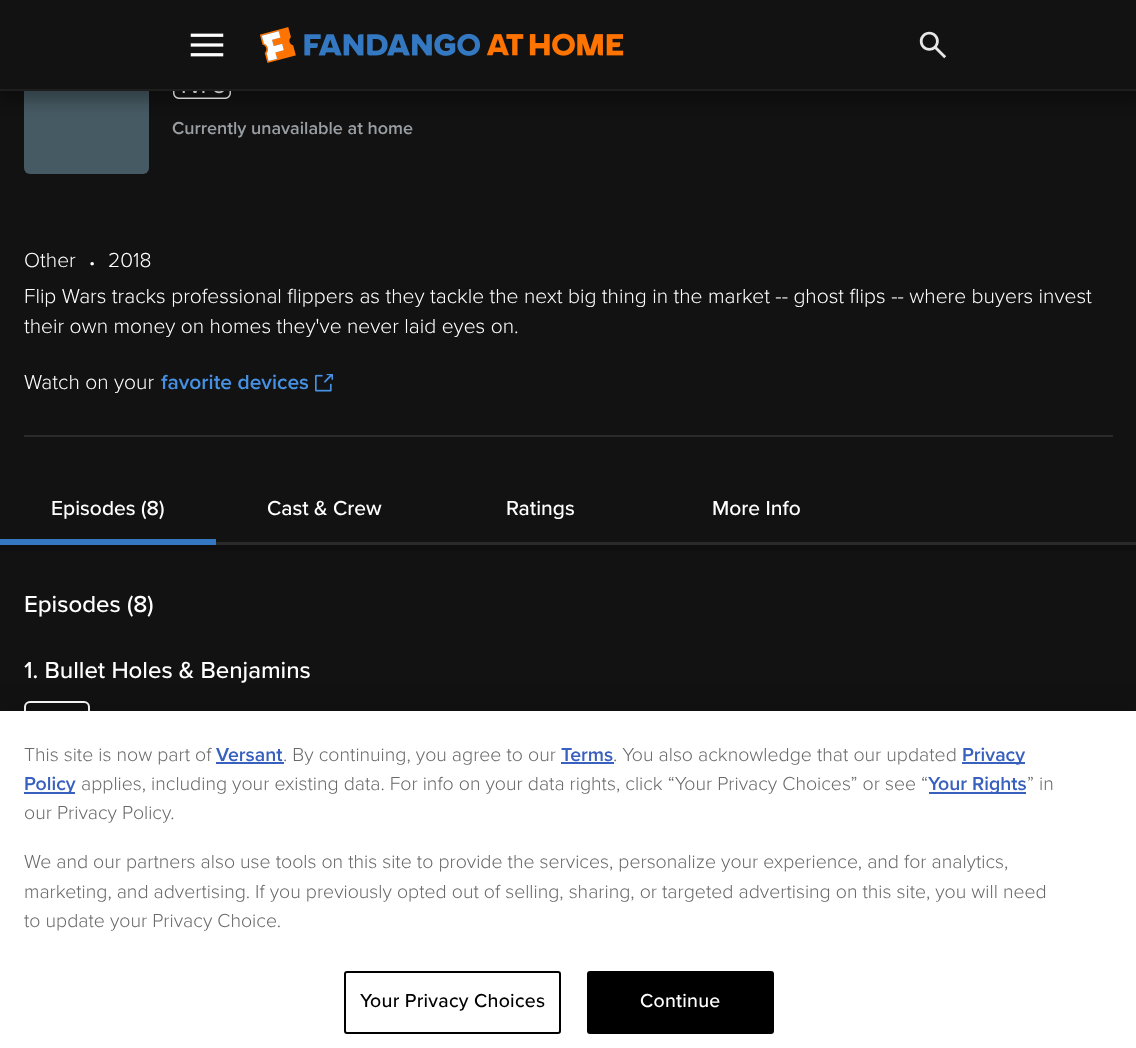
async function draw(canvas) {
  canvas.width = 1136
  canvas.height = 1048
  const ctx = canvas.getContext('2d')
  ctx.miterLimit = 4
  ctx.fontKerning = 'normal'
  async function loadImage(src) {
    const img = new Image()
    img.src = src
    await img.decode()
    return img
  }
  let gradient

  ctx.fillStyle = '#121212'
  ctx.fillRect(0, 0, 1136, 1048)
  ctx.fillStyle = '#465a63'
  ctx.beginPath()
  ctx.roundRect(24, 21, 125, 153, 6)
  ctx.fill()
  ctx.drawImage(await loadImage('image3.png'), 173, 91, 58, 8)
  ctx.fillStyle = '#0000004d'
  ctx.filter = 'blur(7.5px)'
  ctx.beginPath()
  ctx.rect(-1, -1, 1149, 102)
  ctx.fill()
  ctx.filter = 'none'
  ctx.fillStyle = '#121212'
  ctx.fillRect(0, 0, 1136, 89)
  ctx.fillStyle = '#1e1e1e'
  ctx.fillRect(0, 89, 1136, 2)
  ctx.drawImage(await loadImage('image0.png'), 190, 33, 34, 24)
  ctx.drawImage(await loadImage('image1.png'), 260, 27, 364, 36)
  ctx.drawImage(await loadImage('image2.png'), 919, 31, 28, 28)
  ctx.font = '600 18px Proxima Nova'
  ctx.fillStyle = '#999ea3'
  ctx.fillText('Currently unavailable at home', 172, 134)
  ctx.fillStyle = '#2a2a2a'
  ctx.fillRect(24, 435, 1089, 2)
  ctx.font = '300 21px Proxima Nova'
  ctx.fillStyle = '#fff'
  ctx.fillText('Other', 24, 267)
  ctx.font = '300 38px Proxima Nova'
  ctx.fillText('·', 88, 273)
  ctx.font = '300 21px Proxima Nova'
  ctx.fillText('2018', 108, 267)
  ctx.fillText('Flip Wars tracks professional flippers as they tackle the next big thing in the market -- ghost flips -- where buyers invest', 24, 303)
  ctx.fillText('their own money on homes they\'ve never laid eyes on.', 24, 333)
  ctx.fillText('Watch on your', 24, 389)
  ctx.font = '600 21px Proxima Nova'
  ctx.fillStyle = '#4691e3'
  ctx.fillText('favorite devices', 161, 389)
  ctx.drawImage(await loadImage('image4.png'), 315, 374, 18, 18)
  ctx.fillStyle = '#3478c1'
  ctx.fillRect(0, 539, 216, 6)
  ctx.font = '500 21px Proxima Nova'
  ctx.fillStyle = '#fff'
  ctx.fillText('Episodes (8)', 51, 515)
  ctx.fillText('Cast & Crew', 267, 515)
  ctx.fillText('Ratings', 506, 515)
  ctx.fillText('More Info', 712, 515)
  ctx.fillStyle = '#2a2a2a'
  ctx.fillRect(216, 542, 920, 3)
  gradient = ctx.createLinearGradient(569, 560, 569, 545)
  gradient.addColorStop(0, '#121212')
  gradient.addColorStop(1, '#0e0e0e')
  ctx.fillStyle = gradient
  ctx.fillRect(0, 545, 1136, 6)
  ctx.font = '500 24px Proxima Nova'
  ctx.fillStyle = '#fff'
  ctx.fillText('Episodes (8)', 24, 612)
  ctx.fillText('1. Bullet Holes & Benjamins', 24, 678)
  ctx.beginPath()
  ctx.roundRect(25, 702, 64, 22, 5)
  ctx.strokeStyle = '#fff'
  ctx.lineWidth = 2
  ctx.stroke()
  ctx.fillStyle = '#00000033'
  ctx.filter = 'blur(13.5px)'
  ctx.beginPath()
  ctx.rect(0, 711, 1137, 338)
  ctx.fill()
  ctx.filter = 'none'
  ctx.fillStyle = '#fff'
  ctx.fillRect(0, 711, 1136, 337)
  ctx.font = '300 19.5px Proxima Nova'
  ctx.fillStyle = '#696969'
  ctx.fillText('This site is now part of', 24, 761)
  ctx.font = '600 19.5px Proxima Nova'
  ctx.fillStyle = '#3860be'
  ctx.fillText('Versant', 216, 761)
  ctx.fillRect(216, 762, 68, 2)
  ctx.font = '300 19.5px Proxima Nova'
  ctx.fillStyle = '#696969'
  ctx.fillText('. By continuing, you agree to our', 283, 761)
  ctx.font = '600 19.5px Proxima Nova'
  ctx.fillStyle = '#3860be'
  ctx.fillText('Terms', 561, 761)
  ctx.fillRect(561, 762, 53, 2)
  ctx.font = '300 19.5px Proxima Nova'
  ctx.fillStyle = '#696969'
  ctx.fillText('. You also acknowledge that our updated', 613, 761)
  ctx.fillStyle = '#3860be'
  ctx.fillRect(962, 762, 63, 2)
  ctx.font = '600 19.5px Proxima Nova'
  ctx.fillText('Privacy', 962, 761)
  ctx.fillRect(24, 792, 51, 2)
  ctx.fillText('Policy', 24, 790)
  ctx.font = '300 19.5px Proxima Nova'
  ctx.fillStyle = '#696969'
  ctx.fillText('applies, including your existing data. For info on your data rights, click “Your Privacy Choices” or see “', 81, 790)
  ctx.fillStyle = '#3860be'
  ctx.fillRect(929, 792, 97, 2)
  ctx.font = '600 19.5px Proxima Nova'
  ctx.fillText('Your Rights', 928, 790)
  ctx.font = '300 19.5px Proxima Nova'
  ctx.fillStyle = '#696969'
  ctx.fillText('” in', 1027, 790)
  ctx.fillText('our Privacy Policy.', 24, 819)
  ctx.fillText('We and our partners also use tools on this site to provide the services, personalize your experience, and for analytics,', 24, 868)
  ctx.fillText('marketing, and advertising. If you previously opted out of selling, sharing, or targeted advertising on this site, you will need', 24, 898)
  ctx.fillText('to update your Privacy Choice.', 24, 927)
  ctx.beginPath()
  ctx.roundRect(345, 972, 215, 61, 2)
  ctx.strokeStyle = '#000'
  ctx.stroke()
  ctx.letterSpacing = '0.25px'
  ctx.font = '500 19.5px Proxima Nova'
  ctx.fillStyle = '#000'
  ctx.fillText('Your Privacy Choices', 360, 1007)
  ctx.beginPath()
  ctx.roundRect(588, 972, 185, 61, 2)
  ctx.fill()
  ctx.stroke()
  ctx.fillStyle = '#fff'
  ctx.fillText('Continue', 640, 1007)
}

draw(document.querySelector('canvas'))
